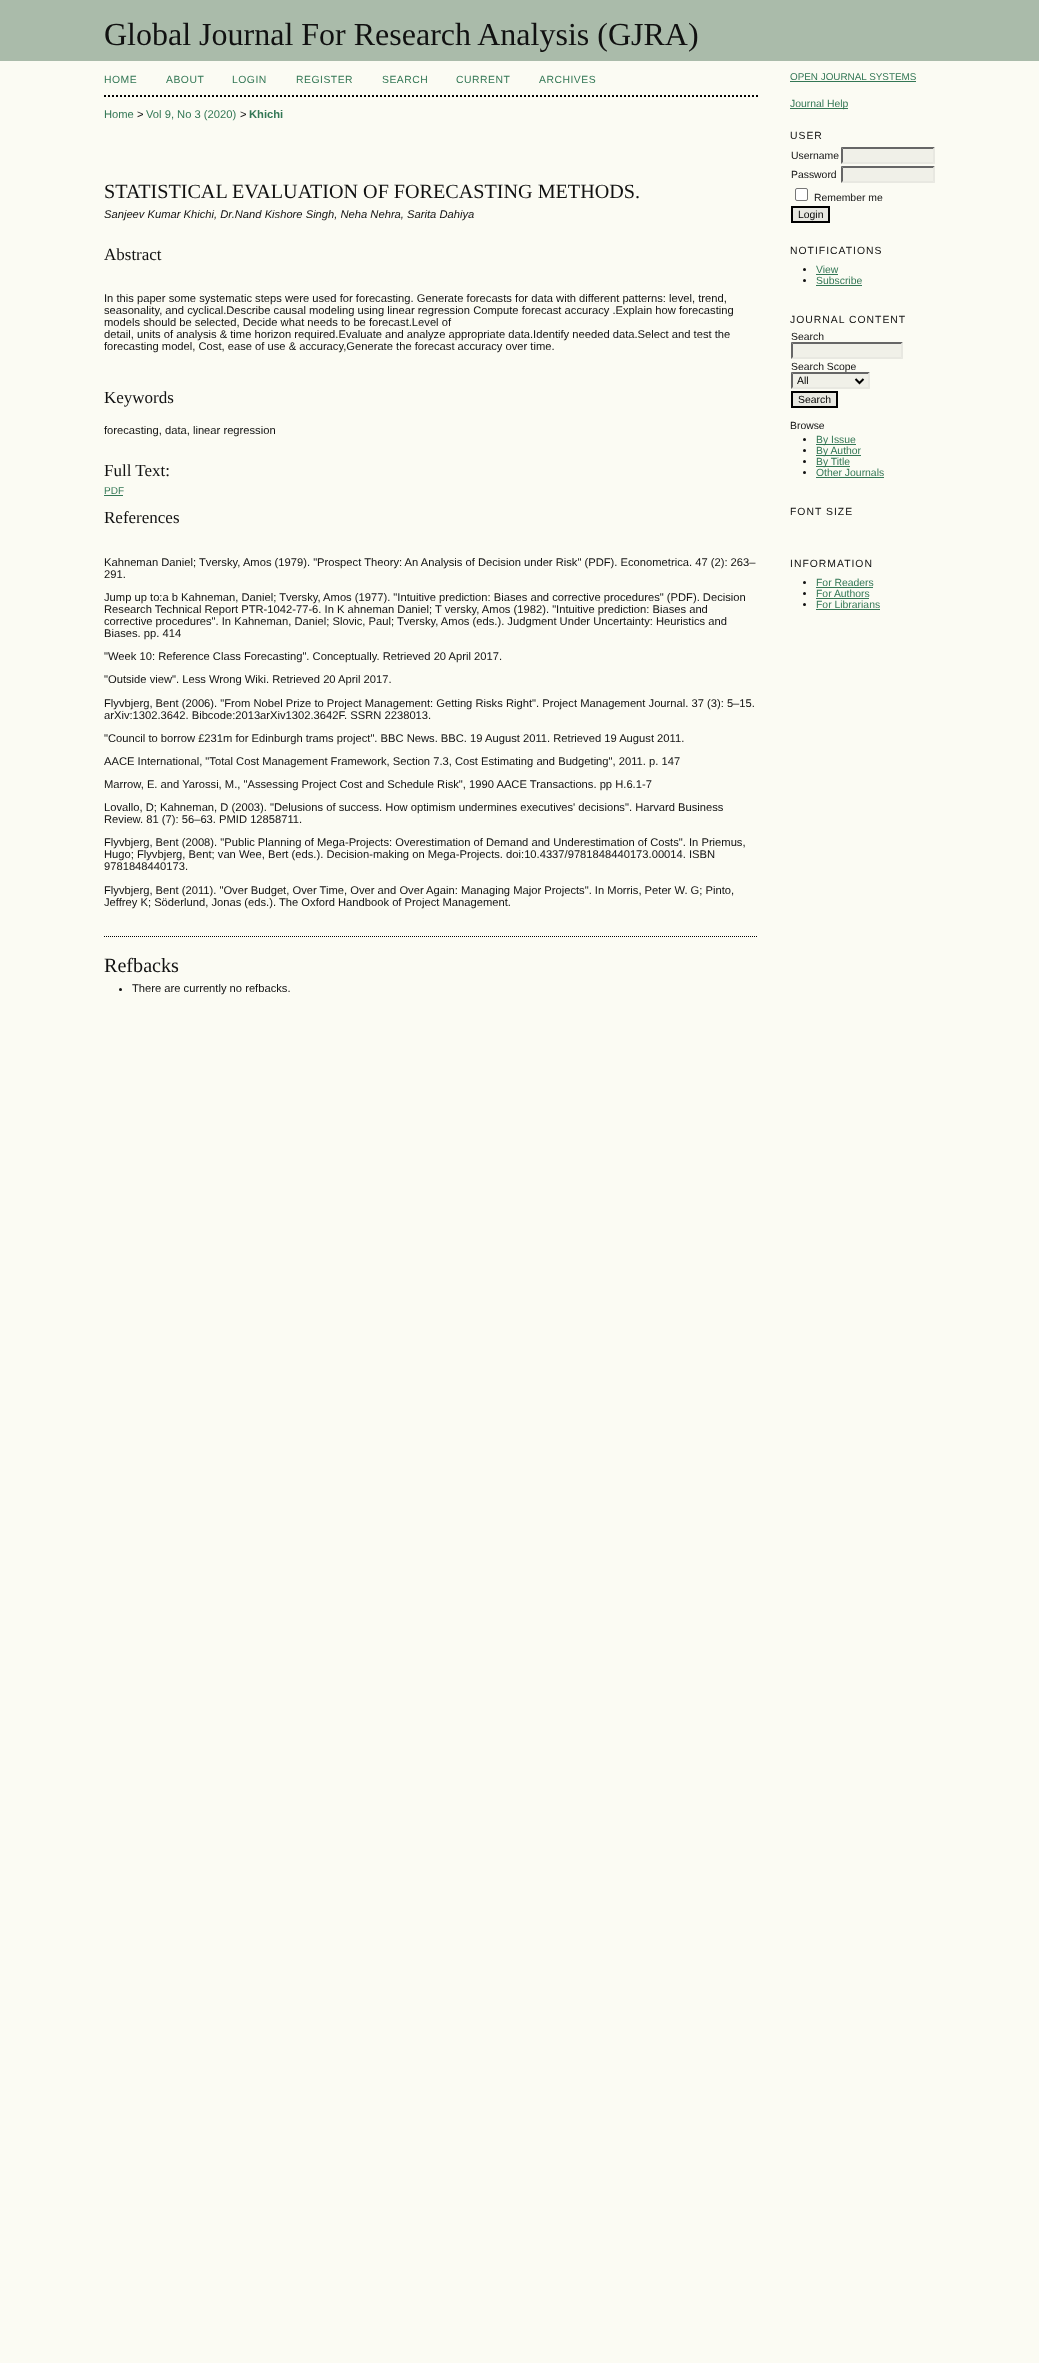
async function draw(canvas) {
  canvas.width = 1039
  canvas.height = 2363
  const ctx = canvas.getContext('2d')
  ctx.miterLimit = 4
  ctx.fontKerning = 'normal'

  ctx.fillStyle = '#fbfbf3'
  ctx.fillRect(0, 0, 1039, 2363)
  ctx.fillStyle = '#aba'
  ctx.fillRect(0, 0, 1039, 61)
  ctx.font = '32px Liberation Serif'
  ctx.fillStyle = '#111'
  ctx.fillText('Global Journal For Research Analysis (GJRA)', 104, 45)
  ctx.beginPath()
  ctx.moveTo(104, 96)
  ctx.lineTo(758, 96)
  ctx.strokeStyle = '#000'
  ctx.lineWidth = 2
  ctx.setLineDash([2, 2])
  ctx.stroke()
  ctx.letterSpacing = '0.5px'
  ctx.font = '10.4px Liberation Sans'
  ctx.fillStyle = '#375'
  ctx.fillText('HOME', 104, 83)
  ctx.fillText('ABOUT', 166, 83)
  ctx.fillText('LOGIN', 232, 83)
  ctx.fillText('REGISTER', 296, 83)
  ctx.fillText('SEARCH', 382, 83)
  ctx.fillText('CURRENT', 456, 83)
  ctx.fillText('ARCHIVES', 539, 83)
  ctx.letterSpacing = '0px'
  ctx.font = '11.2px Liberation Sans'
  ctx.fillText('Home', 104, 118)
  ctx.fillStyle = '#111'
  ctx.fillText('>', 137, 118)
  ctx.fillStyle = '#375'
  ctx.fillText('Vol 9, No 3 (2020)', 146, 118)
  ctx.fillStyle = '#111'
  ctx.fillText('>', 240, 118)
  ctx.font = 'bold 11.2px Liberation Sans'
  ctx.fillStyle = '#375'
  ctx.fillText('Khichi', 249, 118)
  ctx.font = '20.15px Liberation Serif'
  ctx.fillStyle = '#111'
  ctx.fillText('STATISTICAL EVALUATION OF FORECASTING METHODS.', 104, 198)
  ctx.font = 'italic 11.2px Liberation Sans'
  ctx.fillText('Sanjeev Kumar Khichi, Dr.Nand Kishore Singh, Neha Nehra, Sarita Dahiya', 104, 218)
  ctx.font = '17px Liberation Serif'
  ctx.fillText('Abstract', 104, 260)
  ctx.font = '11.2px Liberation Sans'
  ctx.fillText('In this paper some systematic steps were used for forecasting. Generate forecasts for data with different patterns: level, trend,', 104, 302)
  ctx.fillText('seasonality, and cyclical.Describe causal modeling using linear regression Compute forecast accuracy .Explain how forecasting', 104, 314)
  ctx.fillText('models should be selected, Decide what needs to be forecast.Level of', 104, 326)
  ctx.fillText('detail, units of analysis & time horizon required.Evaluate and analyze appropriate data.Identify needed data.Select and test the', 104, 338)
  ctx.fillText('forecasting model, Cost, ease of use & accuracy,Generate the forecast accuracy over time.', 104, 350)
  ctx.font = '17px Liberation Serif'
  ctx.fillText('Keywords', 104, 403)
  ctx.font = '11.2px Liberation Sans'
  ctx.fillText('forecasting, data, linear regression', 104, 434)
  ctx.font = '17px Liberation Serif'
  ctx.fillText('Full Text:', 104, 476)
  ctx.font = '10px Liberation Sans'
  ctx.fillStyle = '#375'
  ctx.fillText('PDF', 104, 494)
  ctx.fillRect(104, 495, 19, 1)
  ctx.font = '17px Liberation Serif'
  ctx.fillStyle = '#111'
  ctx.fillText('References', 104, 523)
  ctx.font = '11.2px Liberation Sans'
  ctx.fillText('Kahneman Daniel; Tversky, Amos (1979). "Prospect Theory: An Analysis of Decision under Risk" (PDF). Econometrica. 47 (2): 263–', 104, 566)
  ctx.fillText('291.', 104, 578)
  ctx.fillText('Jump up to:a b Kahneman, Daniel; Tversky, Amos (1977). "Intuitive prediction: Biases and corrective procedures" (PDF). Decision', 104, 601)
  ctx.fillText('Research Technical Report PTR-1042-77-6. In K ahneman Daniel; T versky, Amos (1982). "Intuitive prediction: Biases and', 104, 613)
  ctx.fillText('corrective procedures". In Kahneman, Daniel; Slovic, Paul; Tversky, Amos (eds.). Judgment Under Uncertainty: Heuristics and', 104, 625)
  ctx.fillText('Biases. pp. 414', 104, 637)
  ctx.fillText('"Week 10: Reference Class Forecasting". Conceptually. Retrieved 20 April 2017.', 104, 660)
  ctx.fillText('"Outside view". Less Wrong Wiki. Retrieved 20 April 2017.', 104, 683)
  ctx.fillText('Flyvbjerg, Bent (2006). "From Nobel Prize to Project Management: Getting Risks Right". Project Management Journal. 37 (3): 5–15.', 104, 707)
  ctx.fillText('arXiv:1302.3642. Bibcode:2013arXiv1302.3642F. SSRN 2238013.', 104, 719)
  ctx.fillText('"Council to borrow £231m for Edinburgh trams project". BBC News. BBC. 19 August 2011. Retrieved 19 August 2011.', 104, 742)
  ctx.fillText('AACE International, "Total Cost Management Framework, Section 7.3, Cost Estimating and Budgeting", 2011. p. 147', 104, 765)
  ctx.fillText('Marrow, E. and Yarossi, M., "Assessing Project Cost and Schedule Risk", 1990 AACE Transactions. pp H.6.1-7', 104, 788)
  ctx.fillText('Lovallo, D; Kahneman, D (2003). "Delusions of success. How optimism undermines executives\' decisions". Harvard Business', 104, 811)
  ctx.fillText('Review. 81 (7): 56–63. PMID 12858711.', 104, 823)
  ctx.fillText('Flyvbjerg, Bent (2008). "Public Planning of Mega-Projects: Overestimation of Demand and Underestimation of Costs". In Priemus,', 104, 846)
  ctx.fillText('Hugo; Flyvbjerg, Bent; van Wee, Bert (eds.). Decision-making on Mega-Projects. doi:10.4337/9781848440173.00014. ISBN', 104, 858)
  ctx.fillText('9781848440173.', 104, 870)
  ctx.fillText('Flyvbjerg, Bent (2011). "Over Budget, Over Time, Over and Over Again: Managing Major Projects". In Morris, Peter W. G; Pinto,', 104, 894)
  ctx.fillText('Jeffrey K; Söderlund, Jonas (eds.). The Oxford Handbook of Project Management.', 104, 906)
  ctx.beginPath()
  ctx.moveTo(104, 936.5)
  ctx.lineTo(758, 936.5)
  ctx.lineWidth = 1
  ctx.setLineDash([1, 1])
  ctx.stroke()
  ctx.font = '20.15px Liberation Serif'
  ctx.fillText('Refbacks', 104, 972)
  ctx.beginPath()
  ctx.arc(120.5, 989.5, 1.5, 0, 2 * Math.PI)
  ctx.fill()
  ctx.font = '11.2px Liberation Sans'
  ctx.fillText('There are currently no refbacks.', 132, 992)
  ctx.font = '9.9px Liberation Sans'
  ctx.fillStyle = '#375'
  ctx.fillText('OPEN JOURNAL SYSTEMS', 790, 80)
  ctx.fillRect(790, 81, 126, 1)
  ctx.fillRect(790, 108, 58, 1)
  ctx.font = '10.4px Liberation Sans'
  ctx.fillText('Journal Help', 790, 107)
  ctx.letterSpacing = '1px'
  ctx.fillStyle = '#111'
  ctx.fillText('USER', 790, 139)
  ctx.letterSpacing = '0px'
  ctx.fillText('Username', 791, 159)
  ctx.fillStyle = '#f0f0e8'
  ctx.fillRect(841, 147, 94, 17)
  ctx.fillStyle = '#666'
  ctx.beginPath()
  ctx.moveTo(841, 147)
  ctx.lineTo(935, 147)
  ctx.lineTo(933, 149)
  ctx.lineTo(843, 149)
  ctx.closePath()
  ctx.fill()
  ctx.fillStyle = '#e8e8e1'
  ctx.beginPath()
  ctx.moveTo(935, 147)
  ctx.lineTo(935, 164)
  ctx.lineTo(933, 162)
  ctx.lineTo(933, 149)
  ctx.closePath()
  ctx.fill()
  ctx.beginPath()
  ctx.moveTo(935, 164)
  ctx.lineTo(841, 164)
  ctx.lineTo(843, 162)
  ctx.lineTo(933, 162)
  ctx.closePath()
  ctx.fill()
  ctx.fillStyle = '#666'
  ctx.beginPath()
  ctx.moveTo(841, 164)
  ctx.lineTo(841, 147)
  ctx.lineTo(843, 149)
  ctx.lineTo(843, 162)
  ctx.closePath()
  ctx.fill()
  ctx.fillStyle = '#111'
  ctx.fillText('Password', 791, 178)
  ctx.fillStyle = '#f0f0e8'
  ctx.fillRect(841, 166, 94, 17)
  ctx.fillStyle = '#666'
  ctx.beginPath()
  ctx.moveTo(841, 166)
  ctx.lineTo(935, 166)
  ctx.lineTo(933, 168)
  ctx.lineTo(843, 168)
  ctx.closePath()
  ctx.fill()
  ctx.fillStyle = '#e8e8e1'
  ctx.beginPath()
  ctx.moveTo(935, 166)
  ctx.lineTo(935, 183)
  ctx.lineTo(933, 181)
  ctx.lineTo(933, 168)
  ctx.closePath()
  ctx.fill()
  ctx.beginPath()
  ctx.moveTo(935, 183)
  ctx.lineTo(841, 183)
  ctx.lineTo(843, 181)
  ctx.lineTo(933, 181)
  ctx.closePath()
  ctx.fill()
  ctx.fillStyle = '#666'
  ctx.beginPath()
  ctx.moveTo(841, 183)
  ctx.lineTo(841, 166)
  ctx.lineTo(843, 168)
  ctx.lineTo(843, 181)
  ctx.closePath()
  ctx.fill()
  ctx.fillStyle = '#fff'
  ctx.beginPath()
  ctx.roundRect(795.5, 188.5, 12, 12, 1.5)
  ctx.fill()
  ctx.strokeStyle = '#767676'
  ctx.setLineDash([])
  ctx.stroke()
  ctx.fillStyle = '#111'
  ctx.fillText('Remember me', 814, 201)
  ctx.fillStyle = '#e8e8e1'
  ctx.beginPath()
  ctx.rect(792, 207, 37, 15)
  ctx.fill()
  ctx.strokeStyle = '#000'
  ctx.lineWidth = 2
  ctx.stroke()
  ctx.fillStyle = '#000'
  ctx.fillText('Login', 798, 218)
  ctx.letterSpacing = '1px'
  ctx.fillStyle = '#111'
  ctx.fillText('NOTIFICATIONS', 790, 254)
  ctx.beginPath()
  ctx.arc(804.5, 269.5, 1.5, 0, 2 * Math.PI)
  ctx.fill()
  ctx.letterSpacing = '0px'
  ctx.fillStyle = '#375'
  ctx.fillText('View', 816, 273)
  ctx.fillRect(816, 274, 22, 1)
  ctx.fillStyle = '#111'
  ctx.beginPath()
  ctx.arc(804.5, 280.5, 1.5, 0, 2 * Math.PI)
  ctx.fill()
  ctx.fillStyle = '#375'
  ctx.fillText('Subscribe', 816, 284)
  ctx.fillRect(816, 285, 46, 1)
  ctx.letterSpacing = '1px'
  ctx.fillStyle = '#111'
  ctx.fillText('JOURNAL CONTENT', 790, 323)
  ctx.letterSpacing = '0px'
  ctx.fillText('Search', 791, 340)
  ctx.fillStyle = '#f0f0e8'
  ctx.fillRect(791, 342, 112, 17)
  ctx.fillStyle = '#666'
  ctx.beginPath()
  ctx.moveTo(791, 342)
  ctx.lineTo(903, 342)
  ctx.lineTo(901, 344)
  ctx.lineTo(793, 344)
  ctx.closePath()
  ctx.fill()
  ctx.fillStyle = '#e8e8e1'
  ctx.beginPath()
  ctx.moveTo(903, 342)
  ctx.lineTo(903, 359)
  ctx.lineTo(901, 357)
  ctx.lineTo(901, 344)
  ctx.closePath()
  ctx.fill()
  ctx.beginPath()
  ctx.moveTo(903, 359)
  ctx.lineTo(791, 359)
  ctx.lineTo(793, 357)
  ctx.lineTo(901, 357)
  ctx.closePath()
  ctx.fill()
  ctx.fillStyle = '#666'
  ctx.beginPath()
  ctx.moveTo(791, 359)
  ctx.lineTo(791, 342)
  ctx.lineTo(793, 344)
  ctx.lineTo(793, 357)
  ctx.closePath()
  ctx.fill()
  ctx.fillStyle = '#111'
  ctx.fillText('Search Scope', 791, 370)
  ctx.fillStyle = '#f0f0e8'
  ctx.fillRect(791, 372, 79, 17)
  ctx.fillStyle = '#666'
  ctx.beginPath()
  ctx.moveTo(791, 372)
  ctx.lineTo(870, 372)
  ctx.lineTo(868, 374)
  ctx.lineTo(793, 374)
  ctx.closePath()
  ctx.fill()
  ctx.fillStyle = '#e8e8e1'
  ctx.beginPath()
  ctx.moveTo(870, 372)
  ctx.lineTo(870, 389)
  ctx.lineTo(868, 387)
  ctx.lineTo(868, 374)
  ctx.closePath()
  ctx.fill()
  ctx.beginPath()
  ctx.moveTo(870, 389)
  ctx.lineTo(791, 389)
  ctx.lineTo(793, 387)
  ctx.lineTo(868, 387)
  ctx.closePath()
  ctx.fill()
  ctx.fillStyle = '#666'
  ctx.beginPath()
  ctx.moveTo(791, 389)
  ctx.lineTo(791, 372)
  ctx.lineTo(793, 374)
  ctx.lineTo(793, 387)
  ctx.closePath()
  ctx.fill()
  ctx.beginPath()
  ctx.moveTo(855.5, 379)
  ctx.lineTo(859.5, 383)
  ctx.lineTo(863.5, 379)
  ctx.stroke()
  ctx.fillStyle = '#000'
  ctx.fillText('All', 797, 384)
  ctx.fillStyle = '#e8e8e1'
  ctx.beginPath()
  ctx.rect(792, 392, 45, 15)
  ctx.fill()
  ctx.stroke()
  ctx.fillStyle = '#000'
  ctx.fillText('Search', 798, 403)
  ctx.fillStyle = '#111'
  ctx.fillText('Browse', 790, 429)
  ctx.beginPath()
  ctx.arc(804.5, 439.5, 1.5, 0, 2 * Math.PI)
  ctx.fill()
  ctx.fillStyle = '#375'
  ctx.fillRect(816, 444, 40, 1)
  ctx.fillText('By Issue', 816, 443)
  ctx.fillStyle = '#111'
  ctx.beginPath()
  ctx.arc(804.5, 450.5, 1.5, 0, 2 * Math.PI)
  ctx.fill()
  ctx.fillStyle = '#375'
  ctx.fillRect(816, 455, 45, 1)
  ctx.fillText('By Author', 816, 454)
  ctx.fillStyle = '#111'
  ctx.beginPath()
  ctx.arc(804.5, 461.5, 1.5, 0, 2 * Math.PI)
  ctx.fill()
  ctx.fillStyle = '#375'
  ctx.fillRect(816, 466, 34, 1)
  ctx.fillText('By Title', 816, 465)
  ctx.fillStyle = '#111'
  ctx.beginPath()
  ctx.arc(804.5, 472.5, 1.5, 0, 2 * Math.PI)
  ctx.fill()
  ctx.fillStyle = '#375'
  ctx.fillText('Other Journals', 816, 476)
  ctx.fillRect(816, 477, 68, 1)
  ctx.letterSpacing = '1px'
  ctx.fillStyle = '#111'
  ctx.fillText('FONT SIZE', 790, 515)
  ctx.fillText('INFORMATION', 790, 567)
  ctx.beginPath()
  ctx.arc(804.5, 582.5, 1.5, 0, 2 * Math.PI)
  ctx.fill()
  ctx.letterSpacing = '0px'
  ctx.fillStyle = '#375'
  ctx.fillText('For Readers', 816, 586)
  ctx.fillRect(816, 587, 57, 1)
  ctx.fillStyle = '#111'
  ctx.beginPath()
  ctx.arc(804.5, 593.5, 1.5, 0, 2 * Math.PI)
  ctx.fill()
  ctx.fillStyle = '#375'
  ctx.fillText('For Authors', 816, 597)
  ctx.fillRect(816, 598, 53, 1)
  ctx.fillStyle = '#111'
  ctx.beginPath()
  ctx.arc(804.5, 604.5, 1.5, 0, 2 * Math.PI)
  ctx.fill()
  ctx.fillStyle = '#375'
  ctx.fillText('For Librarians', 816, 608)
  ctx.fillRect(816, 609, 64, 1)
}

draw(document.querySelector('canvas'))
